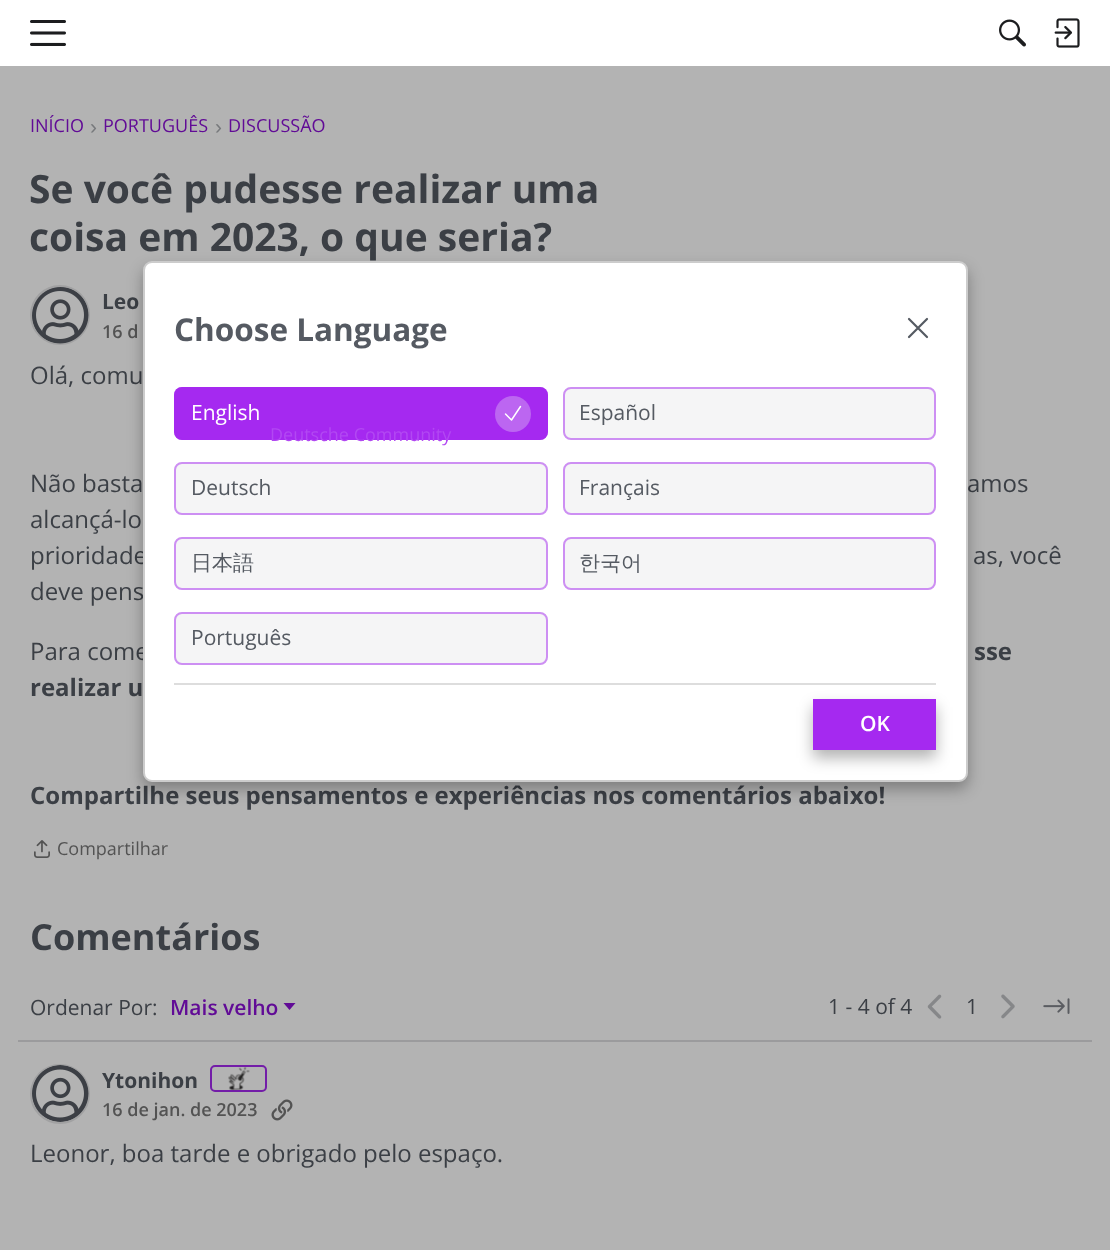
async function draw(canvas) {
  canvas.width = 1110
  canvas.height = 1250
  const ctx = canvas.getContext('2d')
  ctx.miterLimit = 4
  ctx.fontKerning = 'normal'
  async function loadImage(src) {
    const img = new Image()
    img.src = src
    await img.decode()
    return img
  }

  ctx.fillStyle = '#b3b3b3'
  ctx.fillRect(0, 0, 1110, 1250)
  ctx.fillStyle = '#fff'
  ctx.fillRect(0, 0, 1110, 66)
  ctx.drawImage(await loadImage('image0.png'), 30, 20, 36, 26)
  ctx.drawImage(await loadImage('image1.png'), 999, 19, 27, 28)
  ctx.drawImage(await loadImage('image2.png'), 1054, 18, 26, 30)
  ctx.font = '18px Open Sans'
  ctx.fillStyle = '#610b96'
  ctx.fillText('INÍCIO', 30, 132)
  ctx.font = '21px Liberation Sans'
  ctx.fillStyle = '#77797c'
  ctx.fillText('›', 90, 134)
  ctx.font = '18px Open Sans'
  ctx.fillStyle = '#610b96'
  ctx.fillText('PORTUGUÊS', 103, 132)
  ctx.font = '21px Liberation Sans'
  ctx.fillStyle = '#77797c'
  ctx.fillText('›', 215, 134)
  ctx.font = '18px Open Sans'
  ctx.fillStyle = '#610b96'
  ctx.fillText('DISCUSSÃO', 228, 132)
  ctx.font = 'bold 39px Open Sans'
  ctx.fillStyle = '#3b3f45'
  ctx.fillText('Se você pudesse realizar uma', 29, 203)
  ctx.fillText('coisa em 2023, o que seria?', 29, 251)
  ctx.beginPath()
  ctx.arc(60, 315, 29, 0, 2 * Math.PI)
  ctx.strokeStyle = '#a1a1a2'
  ctx.lineWidth = 2
  ctx.stroke()
  ctx.drawImage(await loadImage('image3.png'), 32, 287, 57, 57)
  ctx.font = 'bold 21px Open Sans'
  ctx.fillText('Leo', 102, 309)
  ctx.font = '600 18px Open Sans'
  ctx.fillStyle = '#535353'
  ctx.fillText('16 d', 102, 338)
  ctx.font = '24px Open Sans'
  ctx.fillStyle = '#3b3f45'
  ctx.fillText('Olá, comu', 30, 384)
  ctx.fillText('Não basta', 30, 492)
  ctx.fillText('amos', 967, 492)
  ctx.fillText('alcançá-lo', 30, 528)
  ctx.fillText('prioridade', 30, 564)
  ctx.fillText('as, você', 973, 564)
  ctx.fillText('deve pens', 30, 600)
  ctx.fillText('Para come', 30, 660)
  ctx.font = 'bold 24px Open Sans'
  ctx.fillText('sse', 974, 660)
  ctx.fillText('realizar u', 30, 696)
  ctx.fillText('Compartilhe seus pensamentos e experiências nos comentários abaixo!', 30, 804)
  ctx.drawImage(await loadImage('image4.png'), 34, 840, 16, 18)
  ctx.font = '18px Open Sans'
  ctx.fillStyle = '#535353'
  ctx.fillText('Compartilhar', 57, 855)
  ctx.font = 'bold 36px Open Sans'
  ctx.fillStyle = '#3b3f45'
  ctx.fillText('Comentários', 30, 950)
  ctx.font = '21px Open Sans'
  ctx.fillText('Ordenar Por:', 30, 1015)
  ctx.font = '600 21px Open Sans'
  ctx.fillStyle = '#610b96'
  ctx.fillText('Mais velho', 170, 1015)
  ctx.beginPath()
  ctx.moveTo(283.5, 1003)
  ctx.lineTo(295.5, 1003)
  ctx.lineTo(289.5, 1010)
  ctx.closePath()
  ctx.fill()
  ctx.font = '21px Open Sans'
  ctx.fillStyle = '#3b3f45'
  ctx.fillText('1 - 4 of 4', 828, 1014)
  ctx.drawImage(await loadImage('image5.png'), 927, 994, 15, 25)
  ctx.fillText('1', 966, 1014)
  ctx.drawImage(await loadImage('image6.png'), 1001, 994, 14, 25)
  ctx.drawImage(await loadImage('image7.png'), 1043, 998, 27, 16)
  ctx.fillStyle = '#9b9b9d'
  ctx.fillRect(18, 1040, 1074, 2)
  ctx.beginPath()
  ctx.arc(60, 1094, 29, 0, 2 * Math.PI)
  ctx.stroke()
  ctx.drawImage(await loadImage('image8.png'), 32, 1065, 57, 57)
  ctx.font = 'bold 21px Open Sans'
  ctx.fillStyle = '#3b3f45'
  ctx.fillText('Ytonihon', 102, 1088)
  ctx.beginPath()
  ctx.roundRect(211, 1066, 55, 25, 4)
  ctx.strokeStyle = '#731da8'
  ctx.stroke()
  ctx.drawImage(await loadImage('image9.png'), 228, 1067, 22, 24)
  ctx.font = '600 18px Open Sans'
  ctx.fillStyle = '#535353'
  ctx.fillText('16 de jan. de 2023', 102, 1116)
  ctx.drawImage(await loadImage('image10.png'), 271, 1099, 22, 22)
  ctx.font = '24px Open Sans'
  ctx.fillStyle = '#3b3f45'
  ctx.fillText('Leonor, boa tarde e obrigado pelo espaço.', 30, 1162)
  ctx.fillStyle = '#0000004d'
  ctx.filter = 'blur(7.5px)'
  ctx.beginPath()
  ctx.roundRect(143, 269, 825, 520, 9)
  ctx.fill()
  ctx.filter = 'none'
  ctx.fillStyle = '#fff'
  ctx.beginPath()
  ctx.roundRect(144, 262, 823, 519, 8)
  ctx.fill()
  ctx.strokeStyle = '#ccc'
  ctx.stroke()
  ctx.font = 'bold 31.5px Open Sans'
  ctx.fillStyle = '#555a62'
  ctx.fillText('Choose Language', 174, 341)
  ctx.beginPath()
  ctx.moveTo(909, 337)
  ctx.lineTo(927, 319)
  ctx.moveTo(909, 319)
  ctx.lineTo(927, 337)
  ctx.strokeStyle = '#555a62'
  ctx.lineWidth = 2.2
  ctx.lineCap = 'round'
  ctx.lineJoin = 'round'
  ctx.stroke()
  ctx.fillStyle = '#a529f0'
  ctx.beginPath()
  ctx.roundRect(174, 387, 374, 53, 8)
  ctx.fill()
  ctx.beginPath()
  ctx.roundRect(175, 388, 372, 51, 7)
  ctx.strokeStyle = '#a529f080'
  ctx.lineWidth = 2
  ctx.lineJoin = 'miter'
  ctx.stroke()
  ctx.font = '21px Open Sans'
  ctx.fillStyle = '#fff'
  ctx.fillText('English', 191, 420)
  ctx.fillStyle = '#bc66f1'
  ctx.beginPath()
  ctx.arc(513, 414, 18, 0, 2 * Math.PI)
  ctx.fill()
  ctx.beginPath()
  ctx.moveTo(505.5, 414)
  ctx.lineTo(511.5, 420)
  ctx.lineTo(520.5, 406.5)
  ctx.strokeStyle = '#fff'
  ctx.lineWidth = 1.5
  ctx.lineJoin = 'round'
  ctx.stroke()
  ctx.fillStyle = '#f5f5f6'
  ctx.beginPath()
  ctx.roundRect(563, 387, 373, 53, 8)
  ctx.fill()
  ctx.beginPath()
  ctx.roundRect(564, 388, 371, 51, 7)
  ctx.strokeStyle = '#a529f080'
  ctx.lineWidth = 2
  ctx.lineJoin = 'miter'
  ctx.stroke()
  ctx.fillStyle = '#555a62'
  ctx.fillText('Español', 579, 420)
  ctx.fillStyle = '#f5f5f6'
  ctx.beginPath()
  ctx.roundRect(174, 462, 374, 53, 8)
  ctx.fill()
  ctx.beginPath()
  ctx.roundRect(175, 463, 372, 51, 7)
  ctx.stroke()
  ctx.font = '18px Open Sans'
  ctx.fillStyle = '#b248f2'
  ctx.fillText('Deutsche Community', 270, 441)
  ctx.font = '21px Open Sans'
  ctx.fillStyle = '#555a62'
  ctx.fillText('Deutsch', 191, 495)
  ctx.fillStyle = '#f5f5f6'
  ctx.beginPath()
  ctx.roundRect(563, 462, 373, 53, 8)
  ctx.fill()
  ctx.beginPath()
  ctx.roundRect(564, 463, 371, 51, 7)
  ctx.stroke()
  ctx.fillStyle = '#555a62'
  ctx.fillText('Français', 579, 495)
  ctx.fillStyle = '#f5f5f6'
  ctx.beginPath()
  ctx.roundRect(174, 537, 374, 53, 8)
  ctx.fill()
  ctx.beginPath()
  ctx.roundRect(175, 538, 372, 51, 7)
  ctx.stroke()
  ctx.font = '500 21px WenQuanYi Zen Hei'
  ctx.fillStyle = '#555a62'
  ctx.fillText('日本語', 191, 570)
  ctx.fillStyle = '#f5f5f6'
  ctx.beginPath()
  ctx.roundRect(563, 537, 373, 53, 8)
  ctx.fill()
  ctx.beginPath()
  ctx.roundRect(564, 538, 371, 51, 7)
  ctx.stroke()
  ctx.fillStyle = '#555a62'
  ctx.fillText('한국어', 579, 570)
  ctx.fillStyle = '#f5f5f6'
  ctx.beginPath()
  ctx.roundRect(174, 612, 374, 53, 8)
  ctx.fill()
  ctx.beginPath()
  ctx.roundRect(175, 613, 372, 51, 7)
  ctx.stroke()
  ctx.font = '21px Open Sans'
  ctx.fillStyle = '#555a62'
  ctx.fillText('Português', 191, 645)
  ctx.fillStyle = '#ddd'
  ctx.fillRect(174, 683, 762, 2)
  ctx.fillStyle = '#0000004d'
  ctx.filter = 'blur(7.5px)'
  ctx.beginPath()
  ctx.rect(813, 707, 123, 51)
  ctx.fill()
  ctx.filter = 'none'
  ctx.fillStyle = '#a529f0'
  ctx.fillRect(813, 699, 123, 51)
  ctx.font = '600 21px Open Sans'
  ctx.fillStyle = '#fff'
  ctx.fillText('OK', 860, 731)
}

draw(document.querySelector('canvas'))
